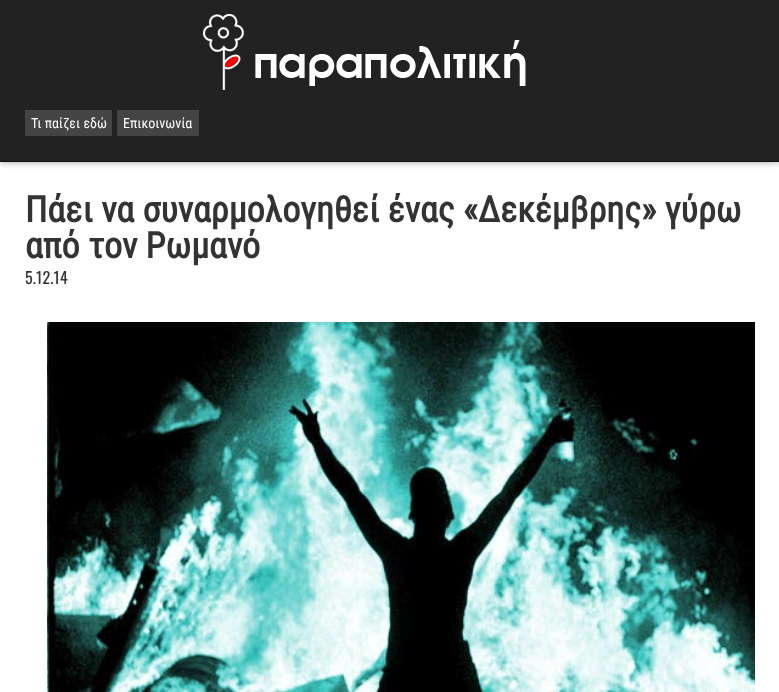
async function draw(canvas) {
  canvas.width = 779
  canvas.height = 692
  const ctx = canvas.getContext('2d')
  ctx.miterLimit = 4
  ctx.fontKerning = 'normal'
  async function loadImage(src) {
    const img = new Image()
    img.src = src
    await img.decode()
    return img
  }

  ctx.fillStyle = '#fff'
  ctx.fillRect(0, 0, 779, 692)
  ctx.fillStyle = '#0000004d'
  ctx.filter = 'blur(3px)'
  ctx.beginPath()
  ctx.rect(0, 1, 779, 162)
  ctx.fill()
  ctx.filter = 'none'
  ctx.fillStyle = '#222'
  ctx.fillRect(0, 0, 779, 161)
  ctx.fillStyle = '#111'
  ctx.fillRect(0, 161, 779, 1)
  ctx.drawImage(await loadImage('image0.png'), 203, 14, 323, 76)
  ctx.fillStyle = '#444'
  ctx.fillRect(25, 110, 87, 26)
  ctx.font = '14px Roboto Condensed'
  ctx.fillStyle = '#fff'
  ctx.fillText('Τι παίζει εδώ', 31, 128)
  ctx.fillStyle = '#444'
  ctx.fillRect(117, 110, 82, 26)
  ctx.fillStyle = '#fff'
  ctx.fillText('Επικοινωνία', 123, 128)
  ctx.font = 'bold 36px Roboto Condensed'
  ctx.fillStyle = '#333'
  ctx.fillText('Πάει να συναρμολογηθεί ένας «Δεκέμβρης» γύρω', 25, 222)
  ctx.fillText('από τον Ρωμανό', 25, 258)
  ctx.letterSpacing = '0.25px'
  ctx.font = '16px Oswald'
  ctx.fillText('5.12.14', 25, 284)
  ctx.drawImage(await loadImage('image1.png'), 47, 322, 708, 370)
}

draw(document.querySelector('canvas'))
